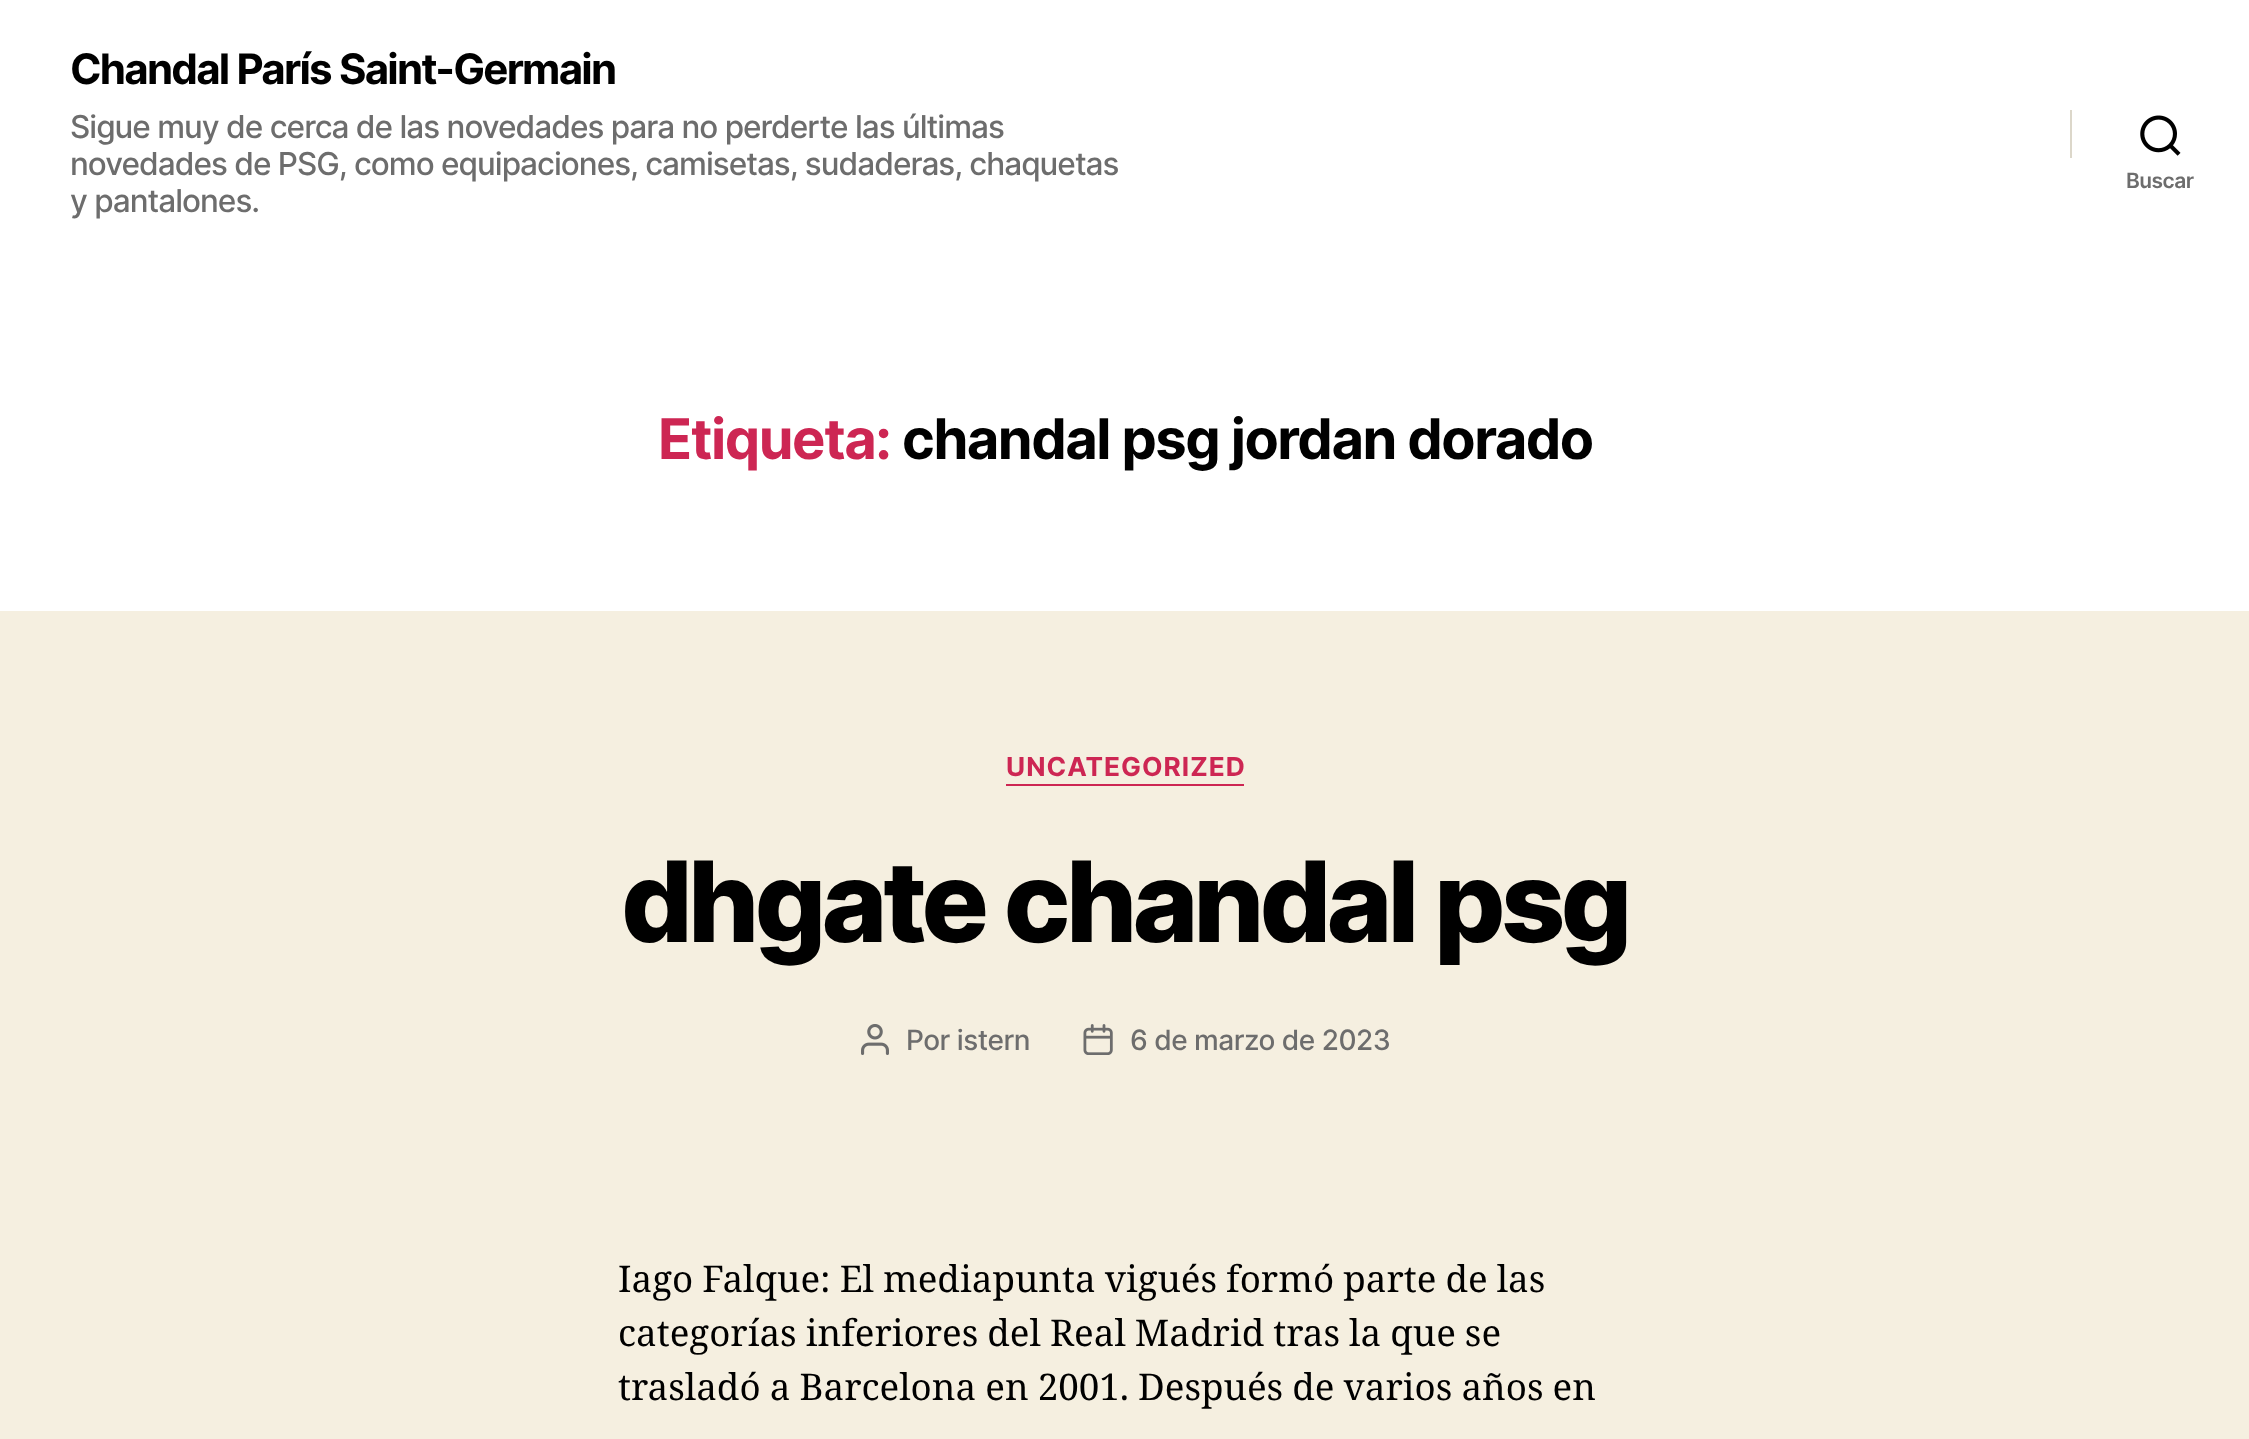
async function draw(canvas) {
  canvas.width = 2249
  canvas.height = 1439
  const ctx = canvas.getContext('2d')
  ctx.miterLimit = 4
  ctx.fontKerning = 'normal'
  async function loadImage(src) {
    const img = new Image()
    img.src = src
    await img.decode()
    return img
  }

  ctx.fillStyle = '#f5efe0'
  ctx.fillRect(0, 0, 2249, 1439)
  ctx.fillStyle = '#fff'
  ctx.fillRect(0, 0, 2249, 611)
  ctx.letterSpacing = '-1.75px'
  ctx.font = 'bold 42px Inter'
  ctx.fillStyle = '#000'
  ctx.fillText('Chandal París Saint-Germain', 70, 84)
  ctx.letterSpacing = '-0.98px'
  ctx.font = '500 31.5px Inter'
  ctx.fillStyle = '#6d6d6d'
  ctx.fillText('Sigue muy de cerca de las novedades para no perderte las últimas', 70, 138)
  ctx.fillText('novedades de PSG, como equipaciones, camisetas, sudaderas, chaquetas', 70, 175)
  ctx.fillText('y pantalones.', 70, 212)
  ctx.fillStyle = '#dcd7ca'
  ctx.fillRect(2070, 110, 2, 48)
  ctx.drawImage(await loadImage('image0.png'), 2140, 115, 41, 41)
  ctx.letterSpacing = '-0.5px'
  ctx.font = '600 21px Inter'
  ctx.fillStyle = '#6d6d6d'
  ctx.fillText('Buscar', 2126, 188)
  ctx.letterSpacing = '-1.5px'
  ctx.font = 'bold 56px Inter'
  ctx.fillStyle = '#cd2653'
  ctx.fillText('Etiqueta:', 658, 459)
  ctx.fillStyle = '#000'
  ctx.fillText('chandal psg jordan dorado', 902, 459)
  ctx.fillStyle = '#cd2653'
  ctx.fillRect(1006, 784, 238, 2)
  ctx.letterSpacing = '1px'
  ctx.font = 'bold 26.25px Inter'
  ctx.fillText('UNCATEGORIZED', 1006, 776)
  ctx.letterSpacing = '-4.7px'
  ctx.font = '800 112px Inter'
  ctx.fillStyle = '#000'
  ctx.fillText('dhgate chandal psg', 621, 942)
  ctx.drawImage(await loadImage('image1.png'), 861, 1024, 28, 31)
  ctx.letterSpacing = '-0.5px'
  ctx.font = '500 28px Inter'
  ctx.fillStyle = '#6d6d6d'
  ctx.fillText('Por istern', 906, 1050)
  ctx.drawImage(await loadImage('image2.png'), 1083, 1024, 30, 31)
  ctx.fillText('6 de marzo de 2023', 1130, 1050)
  ctx.letterSpacing = '0px'
  ctx.wordSpacing = '-0.5px'
  ctx.font = '36.75px Noto Serif'
  ctx.fillStyle = '#000'
  ctx.fillText('Iago Falque: El mediapunta vigués formó parte de las', 618, 1292)
  ctx.fillText('categorías inferiores del Real Madrid tras la que se', 618, 1346)
  ctx.fillText('trasladó a Barcelona en 2001. Después de varios años en', 618, 1400)
}

draw(document.querySelector('canvas'))
